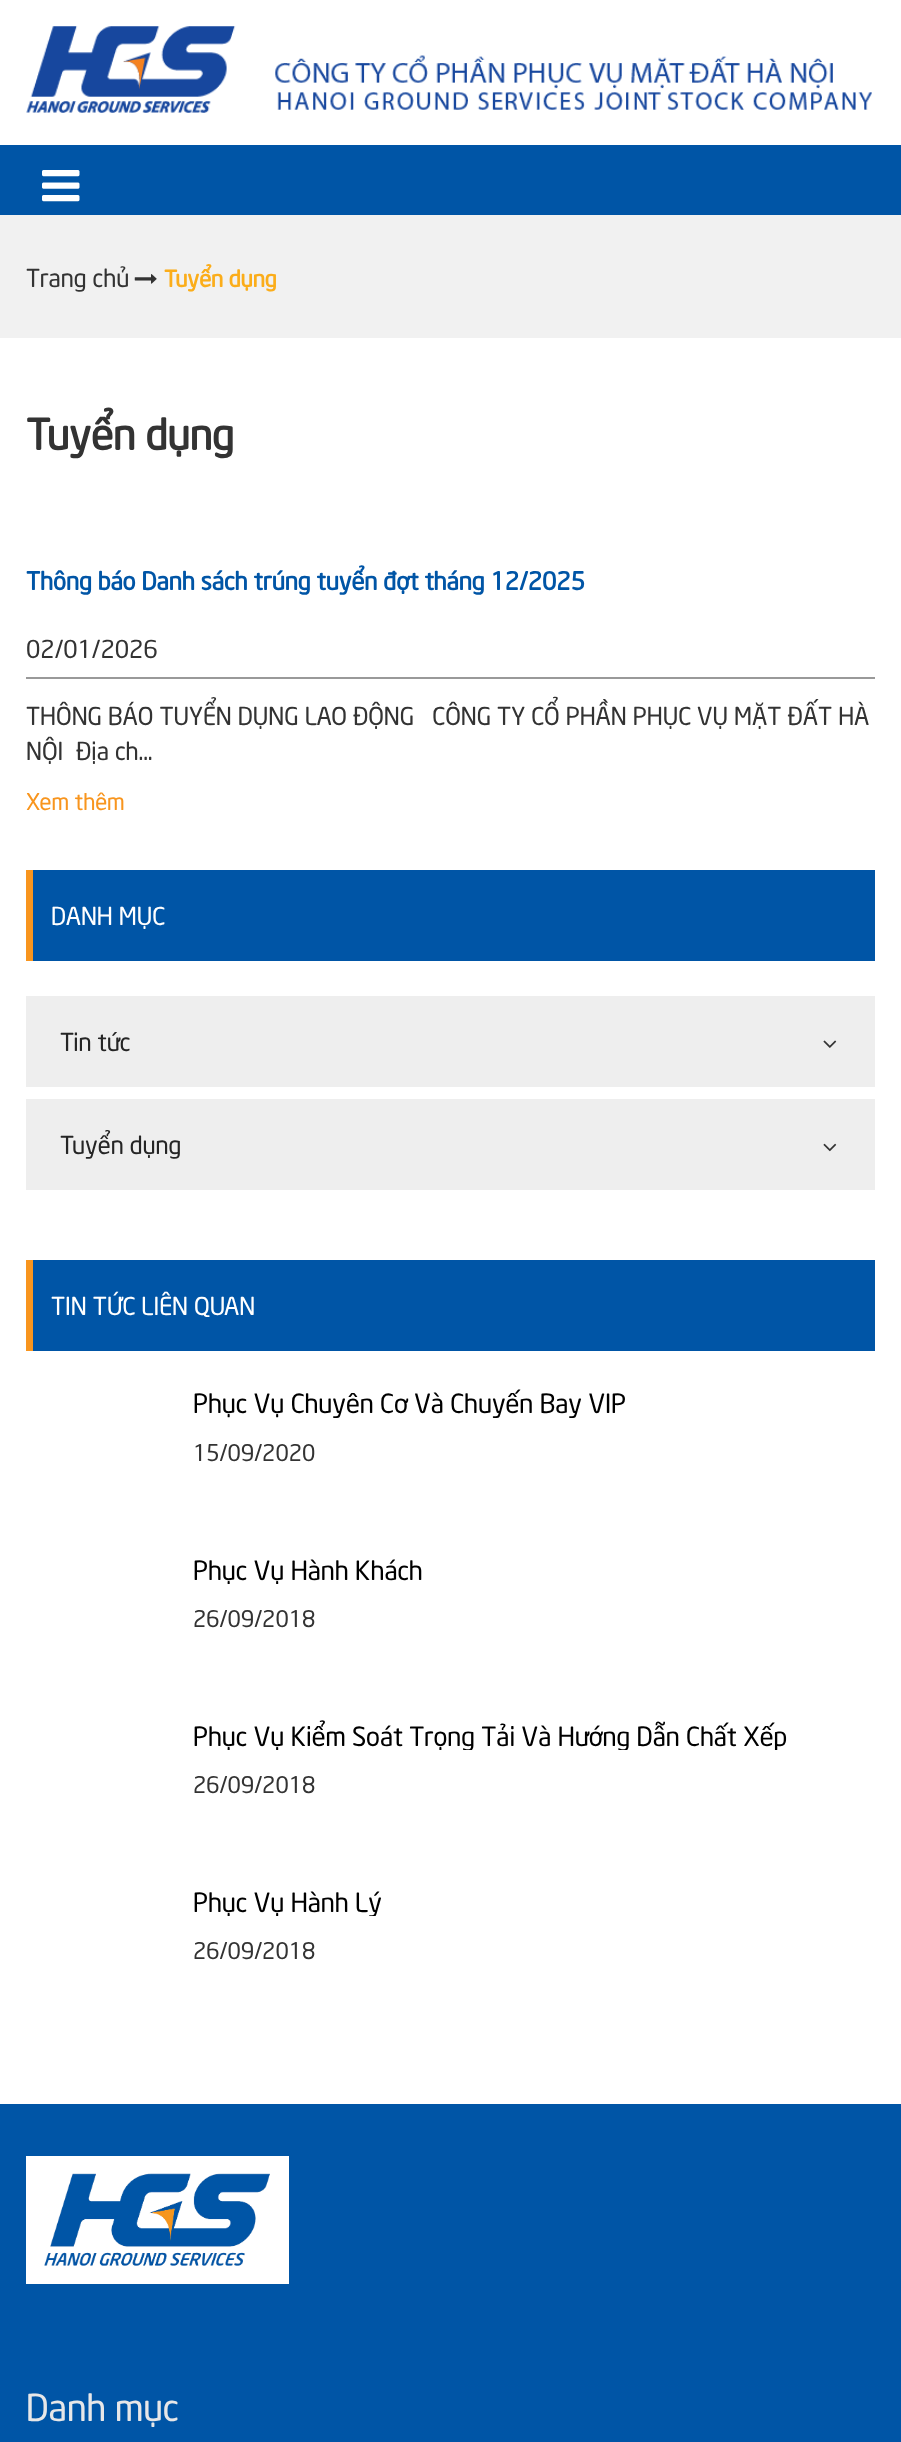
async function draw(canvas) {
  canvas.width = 901
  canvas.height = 2442
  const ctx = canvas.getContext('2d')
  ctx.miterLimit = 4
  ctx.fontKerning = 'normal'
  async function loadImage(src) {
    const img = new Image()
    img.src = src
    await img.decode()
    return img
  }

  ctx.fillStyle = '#fff'
  ctx.fillRect(0, 0, 901, 2442)
  ctx.drawImage(await loadImage('image0.png'), 26, 26, 846, 87)
  ctx.fillStyle = '#0055a6'
  ctx.fillRect(0, 145, 901, 70)
  ctx.drawImage(await loadImage('image1.png'), 42, 170, 38, 32)
  ctx.fillStyle = '#f1f1f1'
  ctx.fillRect(0, 215, 901, 123)
  ctx.font = '24.5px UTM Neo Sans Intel'
  ctx.fillStyle = '#333'
  ctx.fillText('Trang chủ', 26, 287)
  ctx.drawImage(await loadImage('image2.png'), 134, 274, 23, 10)
  ctx.font = 'bold 22.75px UTM Neo Sans Intel'
  ctx.fillStyle = '#fbad1a'
  ctx.fillText('Tuyển dụng', 164, 287)
  ctx.font = 'bold 42px UTM Neo Sans Intel'
  ctx.fillStyle = '#333'
  ctx.fillText('Tuyển dụng', 26, 450)
  ctx.font = 'bold 24.5px UTM Neo Sans Intel'
  ctx.fillStyle = '#0055a6'
  ctx.fillText('Thông báo Danh sách trúng tuyển đợt tháng 12/2025', 26, 590)
  ctx.fillStyle = '#999'
  ctx.fillRect(26, 677, 849, 2)
  ctx.font = '24.5px UTM Neo Sans Intel'
  ctx.fillStyle = '#333'
  ctx.fillText('02/01/2026', 26, 658)
  ctx.fillText('THÔNG BÁO TUYỂN DỤNG LAO ĐỘNG   CÔNG TY CỔ PHẦN PHỤC VỤ MẶT ĐẤT HÀ', 26, 725)
  ctx.fillText('NỘI', 26, 760)
  ctx.fillText('Địa ch...', 76, 760)
  ctx.font = '22.75px UTM Neo Sans Intel'
  ctx.fillStyle = '#f8951e'
  ctx.fillText('Xem thêm', 26, 810)
  ctx.fillStyle = '#0055a6'
  ctx.fillRect(33, 870, 842, 91)
  ctx.fillStyle = '#f8951e'
  ctx.fillRect(26, 870, 7, 91)
  ctx.font = '24.5px UTM Neo Sans Intel'
  ctx.fillStyle = '#fff'
  ctx.fillText('DANH MỤC', 51, 925)
  ctx.fillStyle = '#eee'
  ctx.fillRect(26, 996, 849, 91)
  ctx.fillStyle = '#252525'
  ctx.fillText('Tin tức', 60, 1051)
  ctx.drawImage(await loadImage('image3.png'), 823, 1040, 14, 8)
  ctx.fillStyle = '#eee'
  ctx.fillRect(26, 1099, 849, 91)
  ctx.fillStyle = '#252525'
  ctx.fillText('Tuyển dụng', 60, 1154)
  ctx.drawImage(await loadImage('image4.png'), 823, 1143, 14, 9)
  ctx.fillStyle = '#0055a6'
  ctx.fillRect(33, 1260, 842, 91)
  ctx.fillStyle = '#f8951e'
  ctx.fillRect(26, 1260, 7, 91)
  ctx.fillStyle = '#fff'
  ctx.fillText('TIN TỨC LIÊN QUAN', 51, 1315)
  ctx.save()
  ctx.beginPath()
  ctx.rect(193, 1386, 682, 32)
  ctx.clip()
  ctx.font = '26.25px UTM Neo Sans Intel'
  ctx.fillStyle = '#000'
  ctx.fillText('Phục Vụ Chuyên Cơ Và Chuyến Bay VIP', 193, 1413)
  ctx.restore()
  ctx.font = '22.75px UTM Neo Sans Intel'
  ctx.fillStyle = '#333'
  ctx.fillText('15/09/2020', 193, 1461)
  ctx.save()
  ctx.beginPath()
  ctx.rect(193, 1552, 682, 32)
  ctx.clip()
  ctx.font = '26.25px UTM Neo Sans Intel'
  ctx.fillStyle = '#000'
  ctx.fillText('Phục Vụ Hành Khách', 193, 1580)
  ctx.restore()
  ctx.fillText('26/09/2018', 193, 1627)
  ctx.save()
  ctx.beginPath()
  ctx.rect(193, 1719, 682, 31)
  ctx.clip()
  ctx.font = '26.25px UTM Neo Sans Intel'
  ctx.fillStyle = '#000'
  ctx.fillText('Phục Vụ Kiểm Soát Trọng Tải Và Hướng Dẫn Chất Xếp', 193, 1746)
  ctx.restore()
  ctx.fillText('26/09/2018', 193, 1793)
  ctx.save()
  ctx.beginPath()
  ctx.rect(193, 1885, 682, 31)
  ctx.clip()
  ctx.font = '26.25px UTM Neo Sans Intel'
  ctx.fillStyle = '#000'
  ctx.fillText('Phục Vụ Hành Lý', 193, 1912)
  ctx.restore()
  ctx.fillText('26/09/2018', 193, 1959)
  ctx.fillStyle = '#0055a6'
  ctx.fillRect(0, 2104, 901, 338)
  ctx.fillStyle = '#fff'
  ctx.fillRect(26, 2156, 263, 128)
  ctx.drawImage(await loadImage('image5.png'), 44, 2173, 226, 93)
  ctx.font = '36.75px UTM Neo Sans Intel'
  ctx.fillStyle = '#e7e7e8'
  ctx.fillText('Danh mục', 26, 2421)
}

draw(document.querySelector('canvas'))
